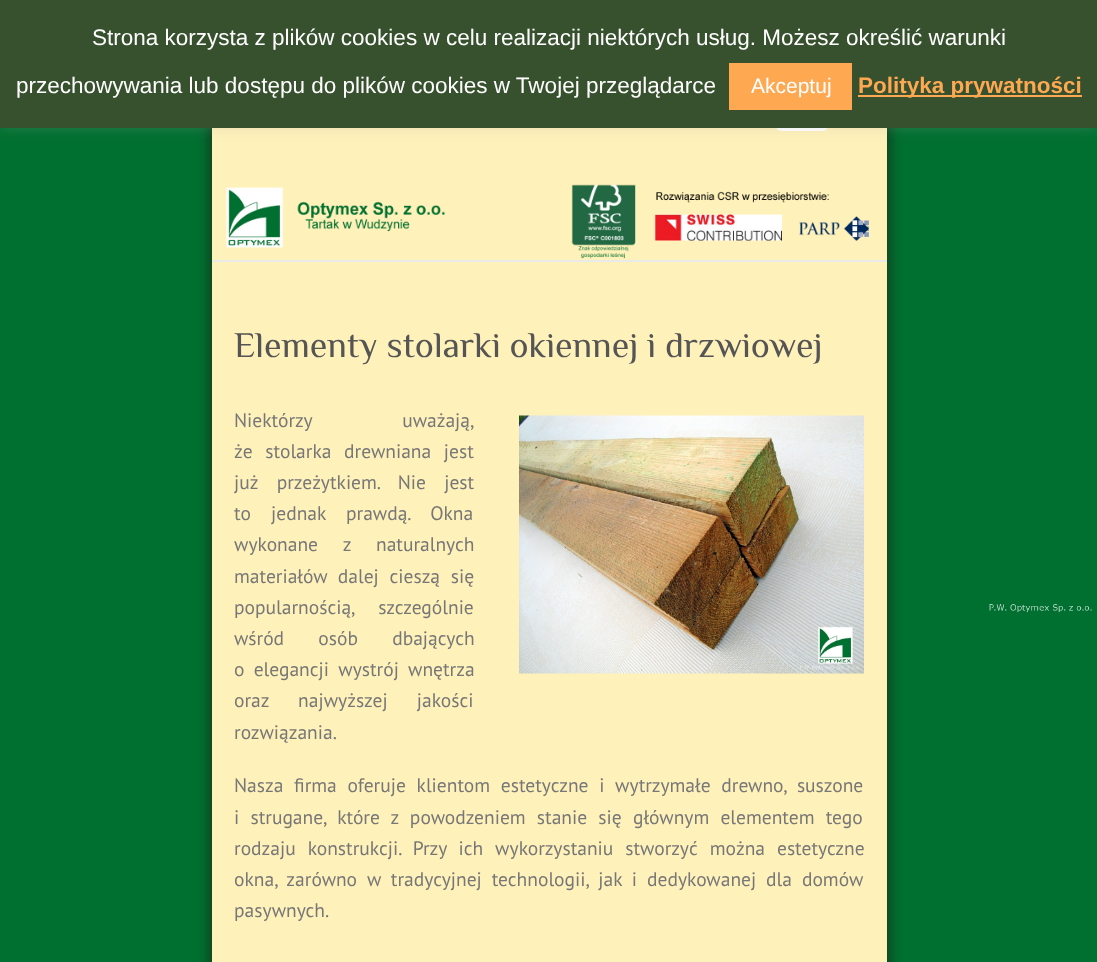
async function draw(canvas) {
  canvas.width = 1097
  canvas.height = 962
  const ctx = canvas.getContext('2d')
  ctx.miterLimit = 4
  ctx.fontKerning = 'normal'
  async function loadImage(src) {
    const img = new Image()
    img.src = src
    await img.decode()
    return img
  }

  ctx.fillStyle = '#fff'
  ctx.fillRect(0, 0, 1097, 962)
  ctx.drawImage(await loadImage('image0.png'), 0, 128, 1097, 834)
  ctx.fillStyle = '#1a261a'
  ctx.filter = 'blur(7.5px)'
  ctx.beginPath()
  ctx.rect(212, 30, 675, 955)
  ctx.fill()
  ctx.filter = 'none'
  ctx.fillStyle = '#fff1ba'
  ctx.fillRect(212, 128, 675, 834)
  ctx.fillStyle = '#fff'
  ctx.beginPath()
  ctx.roundRect(776, 86, 52, 45, 5)
  ctx.fill()
  ctx.fillStyle = '#acabab4d'
  ctx.filter = 'blur(7.5px)'
  ctx.beginPath()
  ctx.rect(0, -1, 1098, 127)
  ctx.fill()
  ctx.filter = 'none'
  ctx.fillStyle = '#37512e'
  ctx.fillRect(0, 0, 1097, 128)
  ctx.font = '22.5px Liberation Sans'
  ctx.fillStyle = '#fff'
  ctx.fillText('Strona korzysta z plików cookies w celu realizacji niektórych usług. Możesz określić warunki', 92, 45)
  ctx.fillText('przechowywania lub dostępu do plików cookies w Twojej przeglądarce', 16, 93)
  ctx.fillStyle = '#ffa852'
  ctx.fillRect(729, 63, 123, 47)
  ctx.font = '21px Liberation Sans'
  ctx.fillStyle = '#fff'
  ctx.fillText('Akceptuj', 751, 93)
  ctx.fillStyle = '#ffa852'
  ctx.fillRect(858, 95, 224, 2)
  ctx.font = 'bold 22.5px Liberation Sans'
  ctx.fillText('Polityka prywatności', 858, 93)
  ctx.drawImage(await loadImage('image1.png'), 226, 184, 643, 75)
  ctx.fillStyle = '#eaeaea'
  ctx.fillRect(212, 260, 675, 2)
  ctx.font = '36px Philosopher'
  ctx.fillStyle = '#555'
  ctx.fillText('Elementy stolarki okiennej i drzwiowej', 234, 357)
  ctx.wordSpacing = '85px'
  ctx.font = '19.5px PT Sans'
  ctx.fillStyle = '#777'
  ctx.fillText('Niektórzy uważają,', 234, 427)
  ctx.wordSpacing = '7.5px'
  ctx.fillText('że stolarka drewniana jest', 234, 458)
  ctx.wordSpacing = '13px'
  ctx.fillText('już przeżytkiem. Nie jest', 234, 489)
  ctx.wordSpacing = '15px'
  ctx.fillText('to jednak prawdą. Okna', 234, 520)
  ctx.wordSpacing = '20px'
  ctx.fillText('wykonane z naturalnych', 234, 551)
  ctx.wordSpacing = '5.5px'
  ctx.fillText('materiałów dalej cieszą się', 234, 583)
  ctx.wordSpacing = '19px'
  ctx.fillText('popularnością, szczególnie', 234, 614)
  ctx.wordSpacing = '29px'
  ctx.fillText('wśród osób dbających', 234, 645)
  ctx.wordSpacing = '4px'
  ctx.fillText('o elegancji wystrój wnętrza', 234, 676)
  ctx.wordSpacing = '24px'
  ctx.fillText('oraz najwyższej jakości', 234, 707)
  ctx.wordSpacing = '0px'
  ctx.fillText('rozwiązania.', 234, 739)
  ctx.drawImage(await loadImage('image2.png'), 519, 415, 345, 259)
  ctx.wordSpacing = '5.5px'
  ctx.fillText('Nasza firma oferuje klientom estetyczne i wytrzymałe drewno, suszone', 234, 792)
  ctx.wordSpacing = '6px'
  ctx.fillText('i strugane, które z powodzeniem stanie się głównym elementem tego', 234, 824)
  ctx.wordSpacing = '6.75px'
  ctx.fillText('rodzaju konstrukcji. Przy ich wykorzystaniu stworzyć można estetyczne', 234, 855)
  ctx.wordSpacing = '4.75px'
  ctx.fillText('okna, zarówno w tradycyjnej technologii, jak i dedykowanej dla domów', 234, 886)
  ctx.wordSpacing = '0px'
  ctx.fillText('pasywnych.', 234, 917)
}

draw(document.querySelector('canvas'))
